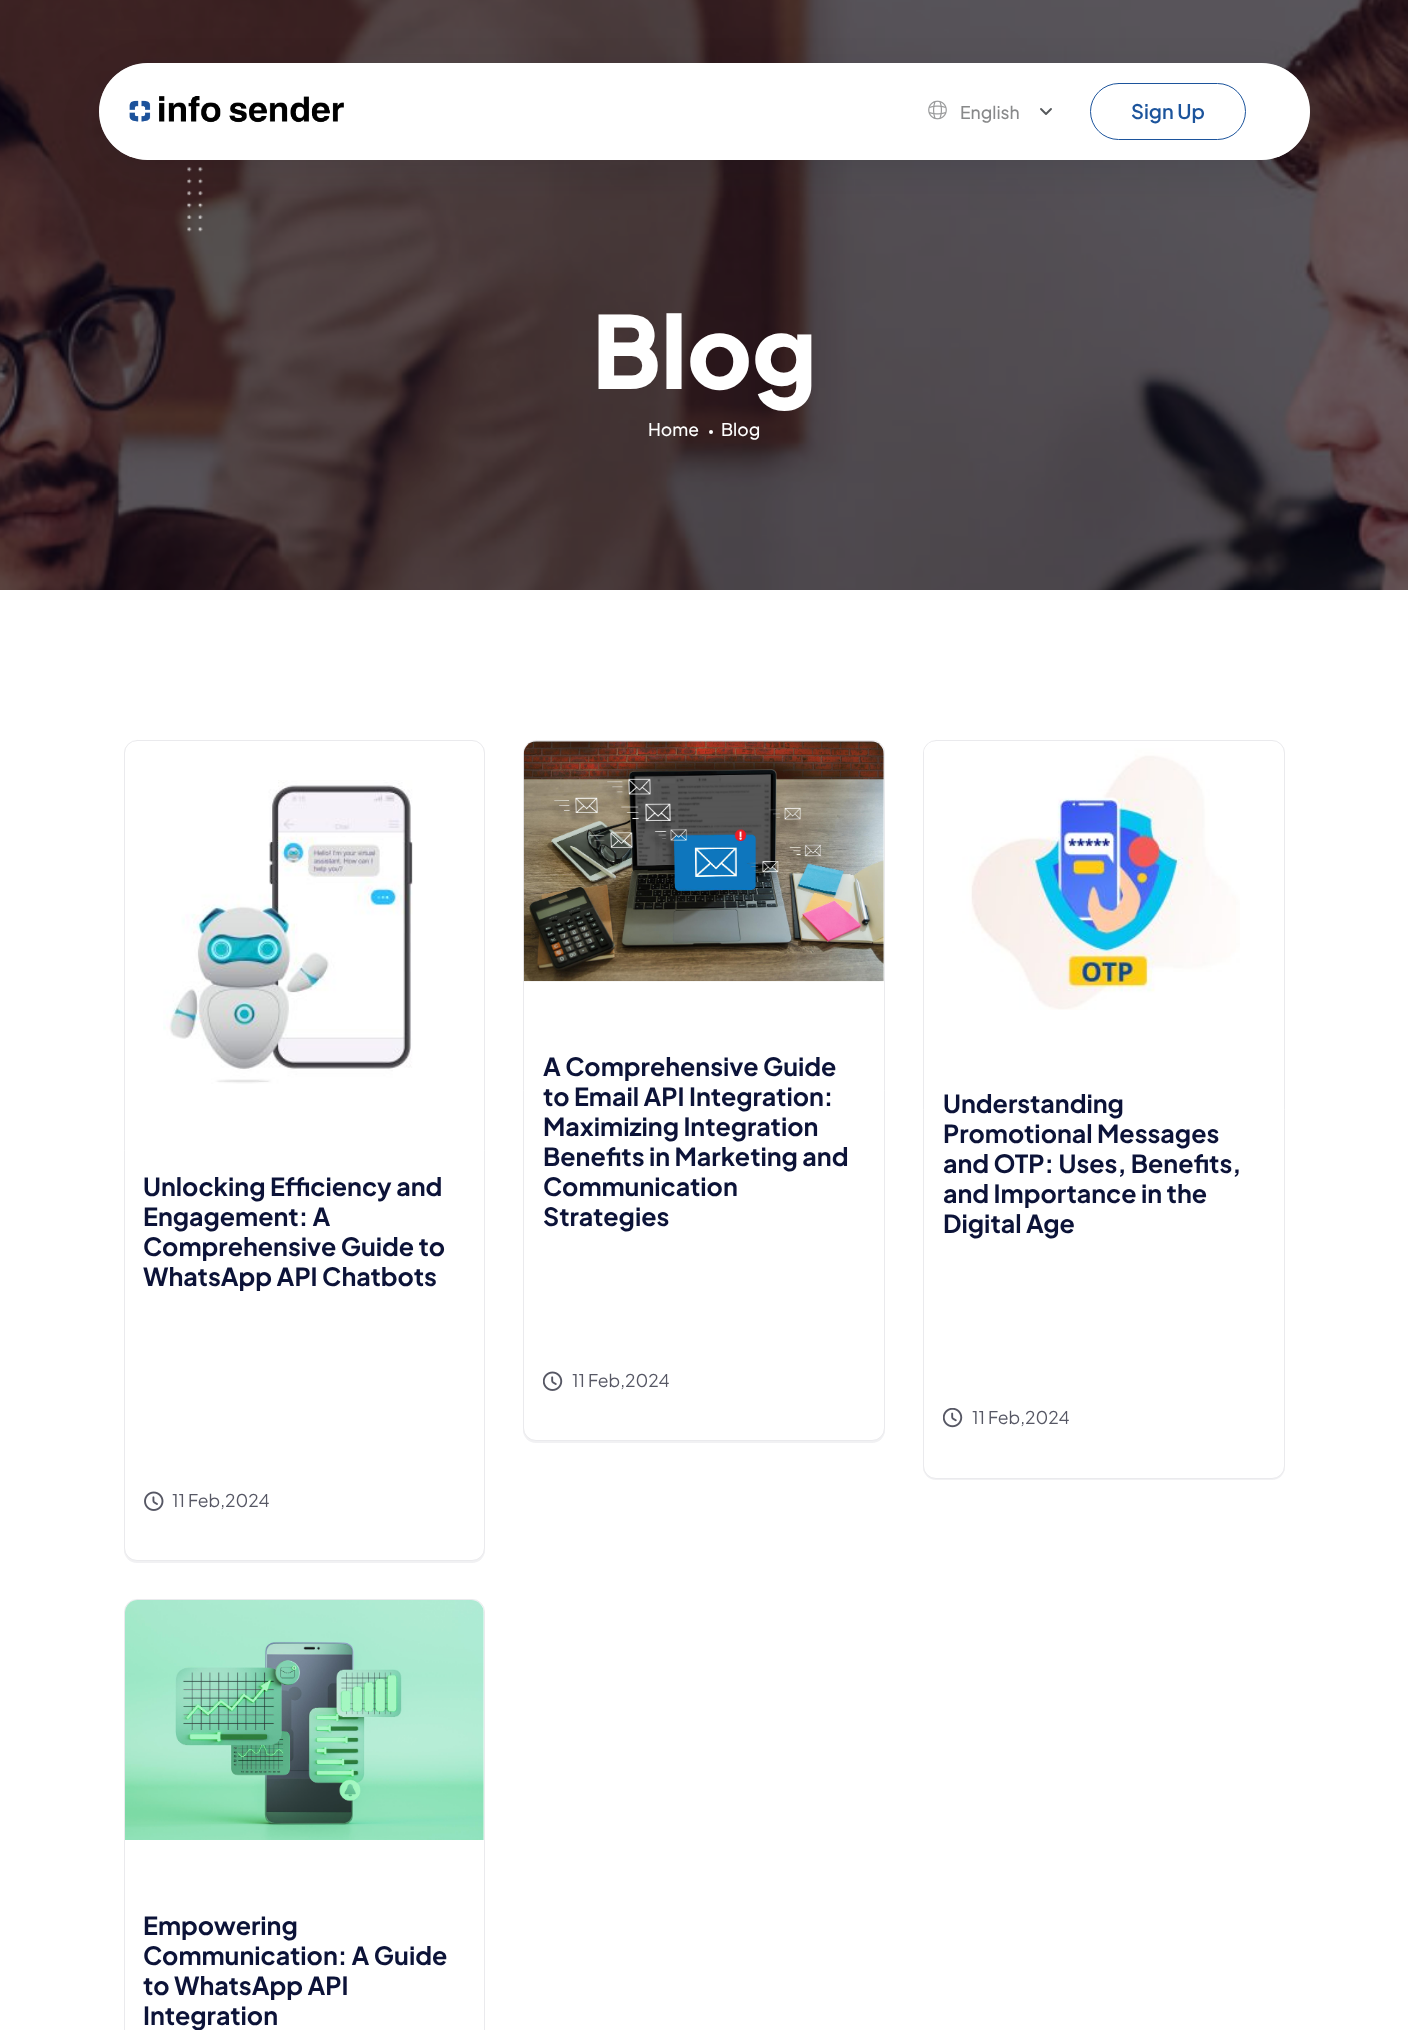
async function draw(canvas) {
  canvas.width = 1408
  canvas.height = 2030
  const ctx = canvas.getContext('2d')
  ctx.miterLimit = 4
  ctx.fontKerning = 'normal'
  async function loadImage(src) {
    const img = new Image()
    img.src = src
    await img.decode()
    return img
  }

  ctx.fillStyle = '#fff'
  ctx.fillRect(0, 0, 1408, 2030)
  ctx.drawImage(await loadImage('image2.png'), 0, 0, 1408, 590)
  ctx.drawImage(await loadImage('image3.png'), 187, 167, 16, 65)
  ctx.fillStyle = '#010f1c1a'
  ctx.filter = 'blur(19px)'
  ctx.beginPath()
  ctx.roundRect(99, 75, 1211, 98, 49)
  ctx.fill()
  ctx.filter = 'none'
  ctx.fillStyle = '#fff'
  ctx.beginPath()
  ctx.roundRect(99, 63, 1211, 97, 48.5)
  ctx.fill()
  ctx.beginPath()
  ctx.roundRect(99.5, 63.5, 1210, 96, 48)
  ctx.strokeStyle = '#ffffff80'
  ctx.stroke()
  ctx.drawImage(await loadImage('image0.png'), 129, 96, 215, 27)
  ctx.drawImage(await loadImage('image1.png'), 928, 100, 19, 20)
  ctx.font = '500 17.5px Plus Jakarta Sans'
  ctx.fillStyle = '#88898a'
  ctx.fillText('English', 960, 119)
  ctx.beginPath()
  ctx.moveTo(1041, 109)
  ctx.lineTo(1046, 114)
  ctx.lineTo(1051, 109)
  ctx.strokeStyle = '#55585b'
  ctx.lineWidth = 1.9
  ctx.lineCap = 'round'
  ctx.lineJoin = 'round'
  ctx.stroke()
  ctx.beginPath()
  ctx.roundRect(1090.5, 83.5, 155, 56, 28)
  ctx.strokeStyle = '#1c549c'
  ctx.lineWidth = 1
  ctx.lineJoin = 'miter'
  ctx.stroke()
  ctx.font = '600 20px Plus Jakarta Sans'
  ctx.fillStyle = '#1c549c'
  ctx.fillText('Sign Up', 1131, 119)
  ctx.font = '800 100px Plus Jakarta Sans'
  ctx.fillStyle = '#fff'
  ctx.fillText('Blog', 592, 389)
  ctx.font = '500 17.5px Plus Jakarta Sans'
  ctx.fillText('Home', 648, 436)
  ctx.beginPath()
  ctx.arc(711, 432, 2, 0, 2 * Math.PI)
  ctx.fill()
  ctx.fillText('Blog', 721, 436)
  ctx.fillStyle = '#0c13380f'
  ctx.filter = 'blur(0.5px)'
  ctx.beginPath()
  ctx.roundRect(124, 741, 361, 822, 13)
  ctx.fill()
  ctx.filter = 'none'
  ctx.fillStyle = '#fff'
  ctx.beginPath()
  ctx.roundRect(124.5, 740.5, 360, 820, 12.5)
  ctx.fill()
  ctx.strokeStyle = '#eaeaed'
  ctx.stroke()
  ctx.drawImage(await loadImage('image4.png'), 163, 780, 250, 304)
  ctx.font = 'bold 25px Plus Jakarta Sans'
  ctx.fillStyle = '#0c1338'
  ctx.fillText('Unlocking Efficiency and', 143, 1196)
  ctx.fillText('Engagement: A', 143, 1226)
  ctx.fillText('Comprehensive Guide to', 143, 1256)
  ctx.fillText('WhatsApp API Chatbots', 143, 1286)
  ctx.drawImage(await loadImage('image5.png'), 144, 1491, 20, 20)
  ctx.font = '17.5px Plus Jakarta Sans'
  ctx.fillStyle = '#565764'
  ctx.fillText('11 Feb,2024', 172, 1507)
  ctx.fillStyle = '#0c13380f'
  ctx.filter = 'blur(0.5px)'
  ctx.beginPath()
  ctx.roundRect(523, 741, 362, 702, 13)
  ctx.fill()
  ctx.filter = 'none'
  ctx.fillStyle = '#fff'
  ctx.beginPath()
  ctx.roundRect(523.5, 740.5, 361, 700, 12.5)
  ctx.fill()
  ctx.stroke()
  ctx.drawImage(await loadImage('image6.png'), 523, 741, 361, 241)
  ctx.font = 'bold 25px Plus Jakarta Sans'
  ctx.fillStyle = '#0c1338'
  ctx.fillText('A Comprehensive Guide', 543, 1076)
  ctx.fillText('to Email API Integration:', 543, 1106)
  ctx.fillText('Maximizing Integration', 543, 1136)
  ctx.fillText('Benefits in Marketing and', 543, 1166)
  ctx.fillText('Communication', 543, 1196)
  ctx.fillText('Strategies', 543, 1226)
  ctx.drawImage(await loadImage('image7.png'), 543, 1371, 20, 20)
  ctx.font = '17.5px Plus Jakarta Sans'
  ctx.fillStyle = '#565764'
  ctx.fillText('11 Feb,2024', 572, 1387)
  ctx.fillStyle = '#0c13380f'
  ctx.filter = 'blur(0.5px)'
  ctx.beginPath()
  ctx.roundRect(923, 741, 362, 739, 13)
  ctx.fill()
  ctx.filter = 'none'
  ctx.fillStyle = '#fff'
  ctx.beginPath()
  ctx.roundRect(923.5, 740.5, 361, 738, 12.5)
  ctx.fill()
  ctx.stroke()
  ctx.drawImage(await loadImage('image8.png'), 924, 743, 316, 267)
  ctx.font = 'bold 25px Plus Jakarta Sans'
  ctx.fillStyle = '#0c1338'
  ctx.fillText('Understanding', 943, 1113)
  ctx.fillText('Promotional Messages', 943, 1143)
  ctx.fillText('and OTP: Uses, Benefits,', 943, 1173)
  ctx.fillText('and Importance in the', 943, 1203)
  ctx.fillText('Digital Age', 943, 1233)
  ctx.drawImage(await loadImage('image9.png'), 943, 1408, 20, 20)
  ctx.font = '17.5px Plus Jakarta Sans'
  ctx.fillStyle = '#565764'
  ctx.fillText('11 Feb,2024', 972, 1424)
  ctx.beginPath()
  ctx.roundRect(124.5, 1599.5, 360, 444, 12.5)
  ctx.stroke()
  ctx.drawImage(await loadImage('image10.png'), 125, 1600, 359, 240)
  ctx.font = 'bold 25px Plus Jakarta Sans'
  ctx.fillStyle = '#0c1338'
  ctx.fillText('Empowering', 143, 1935)
  ctx.fillText('Communication: A Guide', 143, 1965)
  ctx.fillText('to WhatsApp API', 143, 1995)
  ctx.fillText('Integration', 143, 2025)
}

draw(document.querySelector('canvas'))
